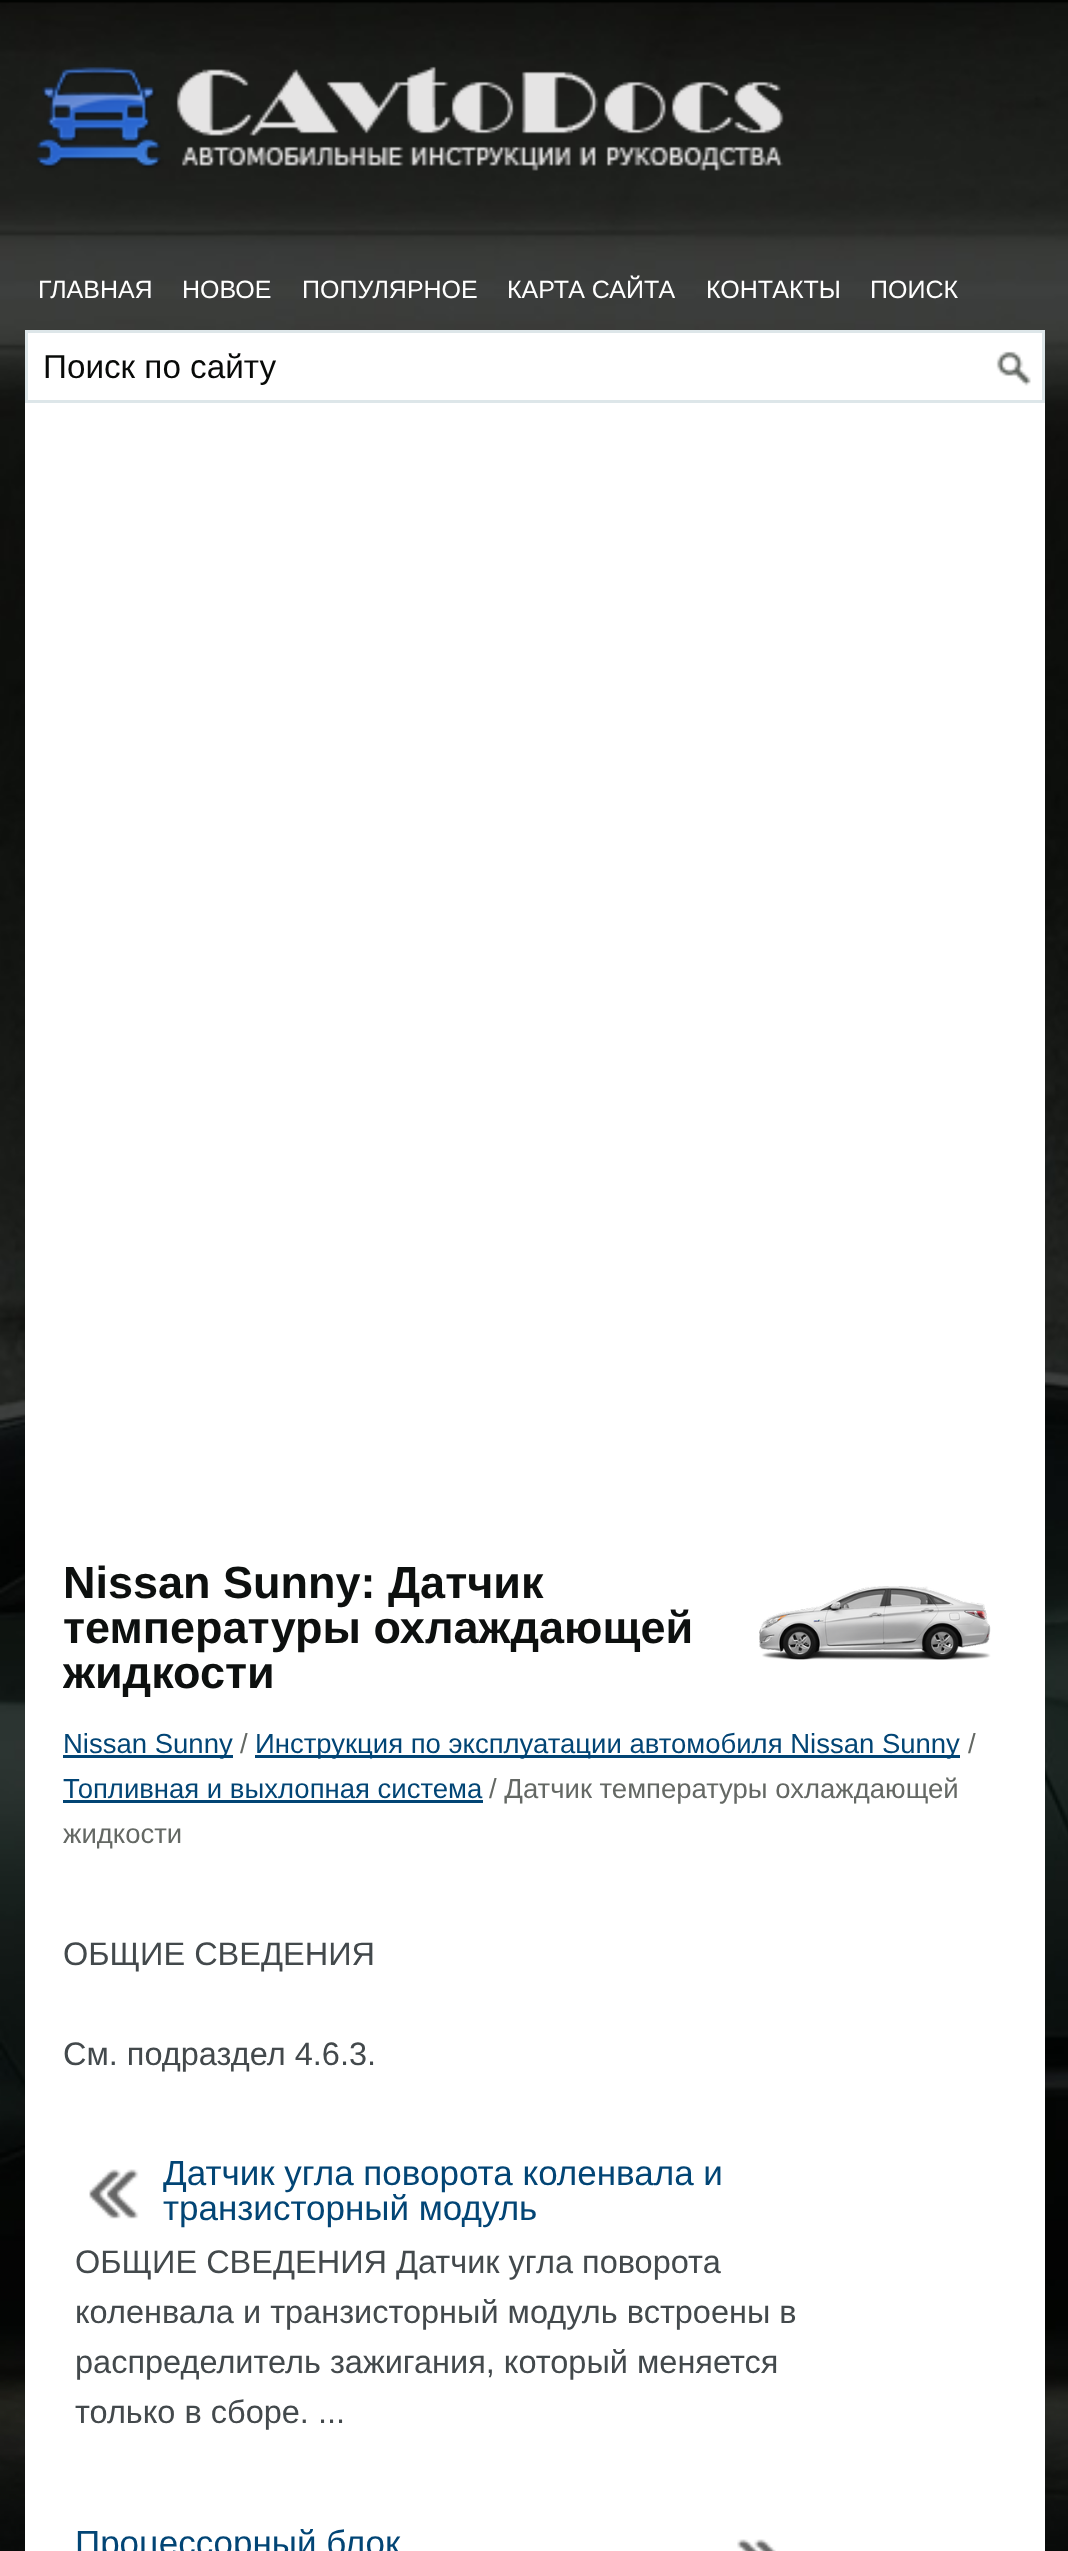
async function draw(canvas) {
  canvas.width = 1068
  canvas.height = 2551
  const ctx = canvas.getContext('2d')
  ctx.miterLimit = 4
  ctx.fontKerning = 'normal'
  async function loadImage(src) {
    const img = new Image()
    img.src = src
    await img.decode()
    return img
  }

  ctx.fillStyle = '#020402'
  ctx.fillRect(0, 0, 1068, 2551)
  ctx.drawImage(await loadImage('image0.png'), 0, 2, 1068, 2549)
  ctx.drawImage(await loadImage('image1.png'), 36, 66, 748, 105)
  ctx.font = '25px Liberation Sans'
  ctx.fillStyle = '#fff'
  ctx.fillText('ГЛАВНАЯ', 38, 298)
  ctx.fillText('НОВОЕ', 182, 298)
  ctx.fillText('ПОПУЛЯРНОЕ', 302, 298)
  ctx.fillText('КАРТА САЙТА', 507, 298)
  ctx.fillText('КОНТАКТЫ', 706, 298)
  ctx.fillText('ПОИСК', 870, 298)
  ctx.fillRect(28, 333, 1014, 67)
  ctx.drawImage(await loadImage('image2.png'), 996, 351, 35, 35)
  ctx.strokeStyle = '#dde6e9'
  ctx.lineWidth = 3
  ctx.strokeRect(26.5, 331.5, 1017, 70)
  ctx.font = '33.25px Liberation Sans'
  ctx.fillStyle = '#080a08'
  ctx.fillText('Поиск по сайту', 43, 378)
  ctx.fillStyle = '#fff'
  ctx.fillRect(25, 403, 1020, 2148)
  ctx.font = 'bold 45px Liberation Sans'
  ctx.fillStyle = '#0d100f'
  ctx.fillText('Nissan Sunny: Датчик', 63, 1598)
  ctx.drawImage(await loadImage('image3.png'), 759, 1586, 232, 74)
  ctx.fillText('температуры охлаждающей', 63, 1643)
  ctx.save()
  ctx.beginPath()
  ctx.rect(63, 1560, 945, 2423)
  ctx.clip()
  ctx.fillText('жидкости', 63, 1688)
  ctx.restore()
  ctx.fillStyle = '#024575'
  ctx.fillRect(63, 1755, 170, 3)
  ctx.font = '27.5px Liberation Sans'
  ctx.fillText('Nissan Sunny', 63, 1753)
  ctx.fillStyle = '#646864'
  ctx.fillText('/', 240, 1753)
  ctx.fillStyle = '#024575'
  ctx.fillRect(255, 1755, 705, 3)
  ctx.fillText('Инструкция по эксплуатации автомобиля Nissan Sunny', 255, 1753)
  ctx.fillStyle = '#646864'
  ctx.fillText('/', 968, 1753)
  ctx.fillStyle = '#024575'
  ctx.fillText('Топливная и выхлопная система', 63, 1798)
  ctx.fillRect(63, 1800, 420, 3)
  ctx.fillStyle = '#646864'
  ctx.fillText('/ Датчик температуры охлаждающей', 489, 1798)
  ctx.fillText('жидкости', 63, 1843)
  ctx.font = '32.5px Liberation Sans'
  ctx.fillStyle = '#43494c'
  ctx.fillText('ОБЩИЕ СВЕДЕНИЯ', 63, 1965)
  ctx.fillText('См. подраздел 4.6.3.', 63, 2065)
  ctx.drawImage(await loadImage('image4.png'), 89, 2169, 50, 50)
  ctx.font = '35px Liberation Sans'
  ctx.fillStyle = '#024575'
  ctx.fillText('Датчик угла поворота коленвала и', 163, 2185)
  ctx.fillText('транзисторный модуль', 163, 2220)
  ctx.font = '32.5px Liberation Sans'
  ctx.fillStyle = '#43494c'
  ctx.fillText('ОБЩИЕ СВЕДЕНИЯ Датчик угла поворота', 75, 2273)
  ctx.fillText('коленвала и транзисторный модуль встроены в', 75, 2323)
  ctx.fillText('распределитель зажигания, который меняется', 75, 2373)
  ctx.fillText('только в сборе. ...', 75, 2423)
  ctx.font = '35px Liberation Sans'
  ctx.fillStyle = '#024575'
  ctx.fillText('Процессорный блок', 75, 2555)
  ctx.drawImage(await loadImage('image5.png'), 737, 2539, 39, 12)
}

draw(document.querySelector('canvas'))
